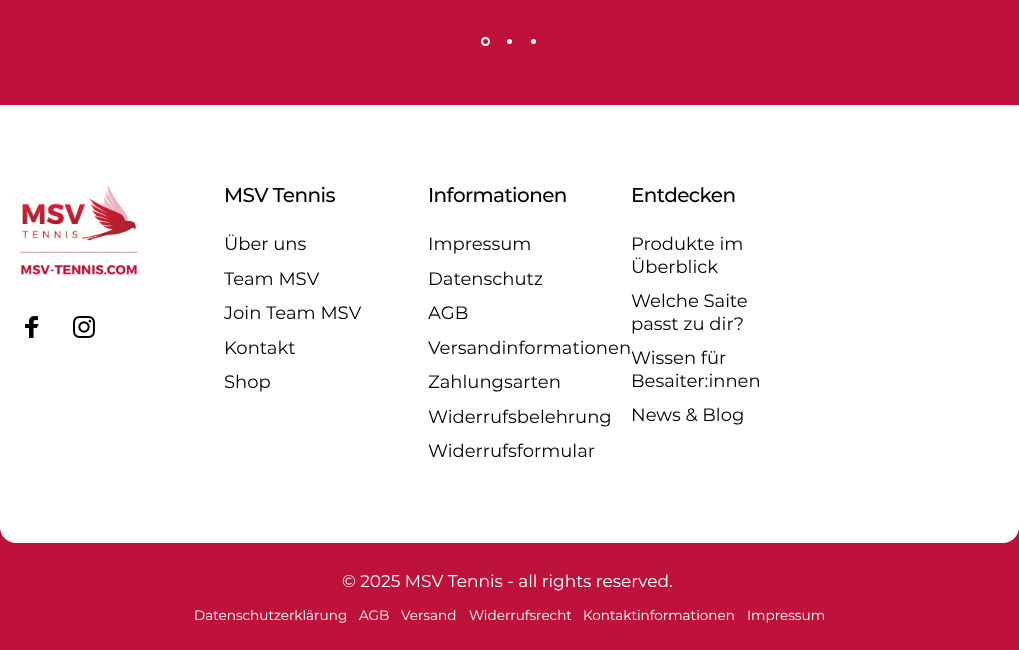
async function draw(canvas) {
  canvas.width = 1019
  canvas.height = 650
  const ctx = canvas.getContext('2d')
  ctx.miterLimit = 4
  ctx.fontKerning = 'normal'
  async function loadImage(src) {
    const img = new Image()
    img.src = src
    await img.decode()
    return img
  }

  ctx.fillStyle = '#be123c'
  ctx.fillRect(0, 0, 1019, 650)
  ctx.beginPath()
  ctx.arc(485.5, 41.5, 3.5, 0, 2 * Math.PI)
  ctx.strokeStyle = '#fff'
  ctx.lineWidth = 2
  ctx.stroke()
  ctx.fillStyle = '#fff'
  ctx.beginPath()
  ctx.arc(509.5, 41.5, 2.5, 0, 2 * Math.PI)
  ctx.fill()
  ctx.beginPath()
  ctx.arc(533.5, 41.5, 2.5, 0, 2 * Math.PI)
  ctx.fill()
  ctx.beginPath()
  ctx.roundRect(0, 105, 1019, 438, [0, 0, 16, 16])
  ctx.fill()
  ctx.drawImage(await loadImage('image0.png'), 20, 185, 118, 90)
  ctx.drawImage(await loadImage('image1.png'), 25, 316, 14, 22)
  ctx.drawImage(await loadImage('image2.png'), 73, 316, 22, 22)
  ctx.letterSpacing = '-0.6px'
  ctx.font = '500 20px Montserrat'
  ctx.fillStyle = '#000'
  ctx.fillText('MSV Tennis', 224, 202)
  ctx.letterSpacing = '0px'
  ctx.font = '18px Montserrat'
  ctx.fillText('Über uns', 224, 250)
  ctx.fillText('Team MSV', 224, 285)
  ctx.fillText('Join Team MSV', 224, 319)
  ctx.fillText('Kontakt', 224, 354)
  ctx.fillText('Shop', 224, 388)
  ctx.letterSpacing = '-0.6px'
  ctx.font = '500 20px Montserrat'
  ctx.fillText('Informationen', 428, 202)
  ctx.letterSpacing = '0px'
  ctx.font = '18px Montserrat'
  ctx.fillText('Impressum', 428, 250)
  ctx.fillText('Datenschutz', 428, 285)
  ctx.fillText('AGB', 428, 319)
  ctx.fillText('Versandinformationen', 428, 354)
  ctx.fillText('Zahlungsarten', 428, 388)
  ctx.fillText('Widerrufsbelehrung', 428, 423)
  ctx.fillText('Widerrufsformular', 428, 457)
  ctx.letterSpacing = '-0.6px'
  ctx.font = '500 20px Montserrat'
  ctx.fillText('Entdecken', 631, 202)
  ctx.letterSpacing = '0px'
  ctx.font = '18px Montserrat'
  ctx.fillText('Produkte im', 631, 250)
  ctx.fillText('Überblick', 631, 273)
  ctx.fillText('Welche Saite', 631, 307)
  ctx.fillText('passt zu dir?', 631, 330)
  ctx.fillText('Wissen für', 631, 364)
  ctx.fillText('Besaiter:innen', 631, 387)
  ctx.fillText('News & Blog', 631, 421)
  ctx.font = '17px Montserrat'
  ctx.fillStyle = '#fff'
  ctx.fillText('© 2025 MSV Tennis - all rights reserved.', 342, 587)
  ctx.font = '13.6px Montserrat'
  ctx.fillText('Datenschutzerklärung', 194, 620)
  ctx.fillText('AGB', 359, 620)
  ctx.fillText('Versand', 401, 620)
  ctx.fillText('Widerrufsrecht', 469, 620)
  ctx.fillText('Kontaktinformationen', 583, 620)
  ctx.fillText('Impressum', 747, 620)
}

draw(document.querySelector('canvas'))
